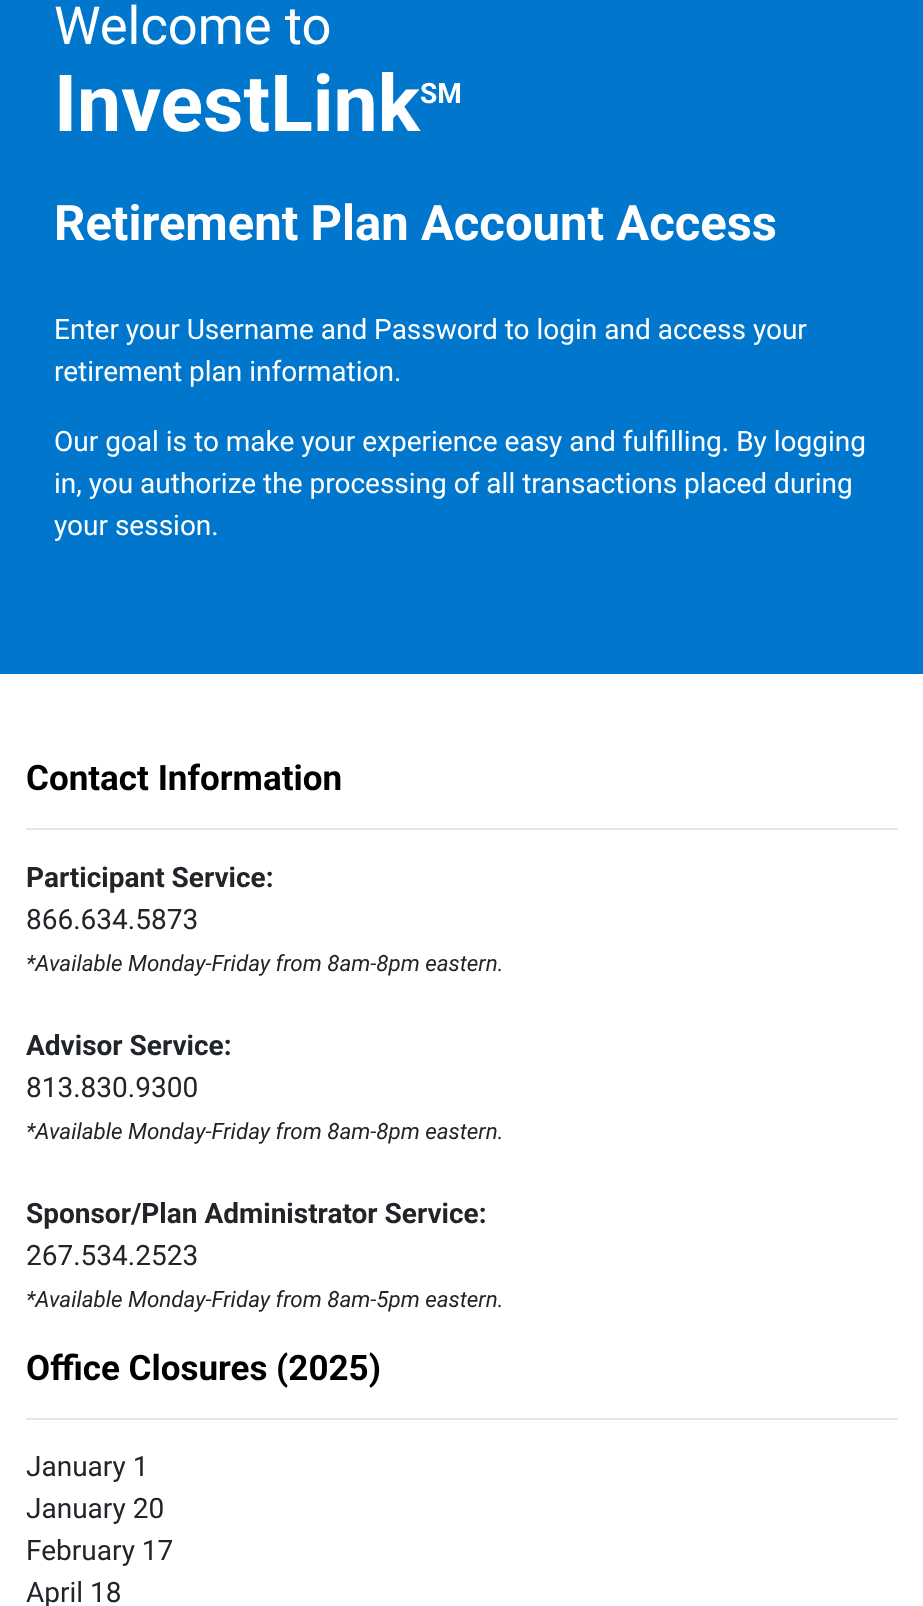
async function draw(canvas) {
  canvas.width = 923
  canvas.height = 1606
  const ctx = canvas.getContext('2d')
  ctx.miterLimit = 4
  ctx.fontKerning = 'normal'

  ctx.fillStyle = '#fff'
  ctx.fillRect(0, 0, 923, 1606)
  ctx.fillStyle = '#07c'
  ctx.fillRect(0, 0, 923, 674)
  ctx.font = '52.5px Roboto'
  ctx.fillStyle = '#fff'
  ctx.fillText('Welcome to', 54, 44)
  ctx.font = 'bold 78.75px Roboto'
  ctx.fillText('InvestLink', 54, 131)
  ctx.font = 'bold 28px Roboto'
  ctx.fillText('SM', 420, 103)
  ctx.font = 'bold 49px Roboto'
  ctx.fillText('Retirement Plan Account Access', 54, 240)
  ctx.font = '28px Roboto'
  ctx.fillText('Enter your Username and Password to login and access your', 54, 339)
  ctx.fillText('retirement plan information.', 54, 381)
  ctx.fillText('Our goal is to make your experience easy and fulfilling. By logging', 54, 451)
  ctx.fillText('in, you authorize the processing of all transactions placed during', 54, 493)
  ctx.fillText('your session.', 54, 535)
  ctx.font = 'bold 35px Roboto'
  ctx.fillStyle = '#000'
  ctx.fillText('Contact Information', 26, 790)
  ctx.fillStyle = '#e6e6e6'
  ctx.fillRect(26, 828, 872, 2)
  ctx.font = 'bold 28px Roboto'
  ctx.fillStyle = '#212529'
  ctx.fillText('Participant Service:', 26, 887)
  ctx.font = '28px Roboto'
  ctx.fillText('866.634.5873', 26, 929)
  ctx.font = 'italic 22.4px Roboto'
  ctx.fillText('*Available Monday-Friday from 8am-8pm eastern.', 26, 971)
  ctx.font = 'bold 28px Roboto'
  ctx.fillText('Advisor Service:', 26, 1055)
  ctx.font = '28px Roboto'
  ctx.fillText('813.830.9300', 26, 1097)
  ctx.font = 'italic 22.4px Roboto'
  ctx.fillText('*Available Monday-Friday from 8am-8pm eastern.', 26, 1139)
  ctx.font = 'bold 28px Roboto'
  ctx.fillText('Sponsor/Plan Administrator Service:', 26, 1223)
  ctx.font = '28px Roboto'
  ctx.fillText('267.534.2523', 26, 1265)
  ctx.font = 'italic 22.4px Roboto'
  ctx.fillText('*Available Monday-Friday from 8am-5pm eastern.', 26, 1307)
  ctx.font = 'bold 35px Roboto'
  ctx.fillStyle = '#000'
  ctx.fillText('Office Closures (2025)', 26, 1380)
  ctx.fillStyle = '#e6e6e6'
  ctx.fillRect(26, 1418, 872, 2)
  ctx.font = '28px Roboto'
  ctx.fillStyle = '#212529'
  ctx.fillText('January 1', 26, 1476)
  ctx.fillText('January 20', 26, 1518)
  ctx.fillText('February 17', 26, 1560)
  ctx.fillText('April 18', 26, 1602)
}

draw(document.querySelector('canvas'))
